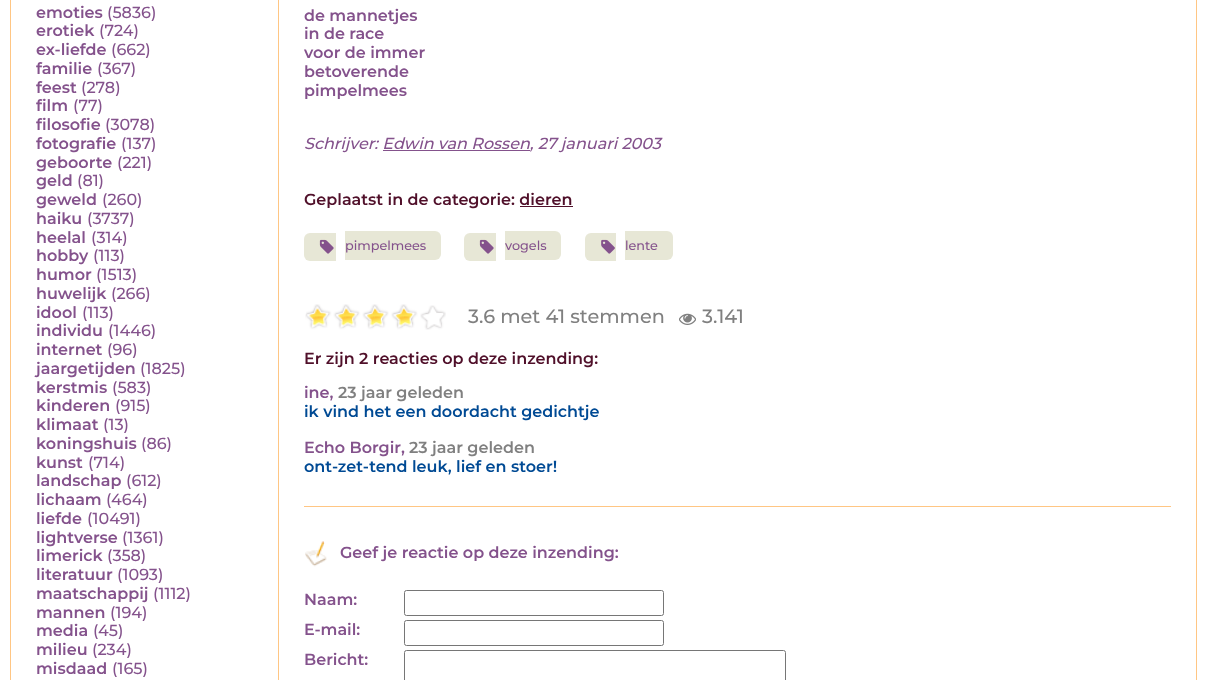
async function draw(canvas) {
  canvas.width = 1205
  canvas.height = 680
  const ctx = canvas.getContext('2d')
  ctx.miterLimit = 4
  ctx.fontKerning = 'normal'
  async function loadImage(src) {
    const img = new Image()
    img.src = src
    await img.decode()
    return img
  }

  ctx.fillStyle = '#fff'
  ctx.fillRect(0, 0, 1205, 680)
  ctx.fillStyle = '#ffc684'
  ctx.fillRect(1196, 0, 1, 680)
  ctx.fillRect(10, 0, 1, 680)
  ctx.fillRect(278, 0, 1, 680)
  ctx.font = '100 16px Montserrat'
  ctx.fillStyle = '#84528c'
  ctx.fillText('emoties', 36, 18)
  ctx.font = '100 16px "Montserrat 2"'
  ctx.fillText('(5836)', 107, 18)
  ctx.font = '100 16px Montserrat'
  ctx.fillText('erotiek', 36, 36)
  ctx.font = '100 16px "Montserrat 2"'
  ctx.fillText('(724)', 99, 36)
  ctx.font = '100 16px Montserrat'
  ctx.fillText('ex-liefde', 36, 55)
  ctx.font = '100 16px "Montserrat 2"'
  ctx.fillText('(662)', 111, 55)
  ctx.font = '100 16px Montserrat'
  ctx.fillText('familie', 36, 74)
  ctx.font = '100 16px "Montserrat 2"'
  ctx.fillText('(367)', 97, 74)
  ctx.font = '100 16px Montserrat'
  ctx.fillText('feest', 36, 93)
  ctx.font = '100 16px "Montserrat 2"'
  ctx.fillText('(278)', 81, 93)
  ctx.font = '100 16px Montserrat'
  ctx.fillText('film', 36, 111)
  ctx.font = '100 16px "Montserrat 2"'
  ctx.fillText('(77)', 73, 111)
  ctx.font = '100 16px Montserrat'
  ctx.fillText('filosofie', 36, 130)
  ctx.font = '100 16px "Montserrat 2"'
  ctx.fillText('(3078)', 105, 130)
  ctx.font = '100 16px Montserrat'
  ctx.fillText('fotografie', 36, 149)
  ctx.font = '100 16px "Montserrat 2"'
  ctx.fillText('(137)', 121, 149)
  ctx.font = '100 16px Montserrat'
  ctx.fillText('geboorte', 36, 168)
  ctx.font = '100 16px "Montserrat 2"'
  ctx.fillText('(221)', 117, 168)
  ctx.font = '100 16px Montserrat'
  ctx.fillText('geld', 36, 186)
  ctx.font = '100 16px "Montserrat 2"'
  ctx.fillText('(81)', 77, 186)
  ctx.font = '100 16px Montserrat'
  ctx.fillText('geweld', 36, 205)
  ctx.font = '100 16px "Montserrat 2"'
  ctx.fillText('(260)', 102, 205)
  ctx.font = '100 16px Montserrat'
  ctx.fillText('haiku', 36, 224)
  ctx.font = '100 16px "Montserrat 2"'
  ctx.fillText('(3737)', 87, 224)
  ctx.font = '100 16px Montserrat'
  ctx.fillText('heelal', 36, 243)
  ctx.font = '100 16px "Montserrat 2"'
  ctx.fillText('(314)', 91, 243)
  ctx.font = '100 16px Montserrat'
  ctx.fillText('hobby', 36, 261)
  ctx.font = '100 16px "Montserrat 2"'
  ctx.fillText('(113)', 93, 261)
  ctx.font = '100 16px Montserrat'
  ctx.fillText('humor', 36, 280)
  ctx.font = '100 16px "Montserrat 2"'
  ctx.fillText('(1513)', 96, 280)
  ctx.font = '100 16px Montserrat'
  ctx.fillText('huwelijk', 36, 299)
  ctx.font = '100 16px "Montserrat 2"'
  ctx.fillText('(266)', 111, 299)
  ctx.font = '100 16px Montserrat'
  ctx.fillText('idool', 36, 318)
  ctx.font = '100 16px "Montserrat 2"'
  ctx.fillText('(113)', 82, 318)
  ctx.font = '100 16px Montserrat'
  ctx.fillText('individu', 36, 336)
  ctx.font = '100 16px "Montserrat 2"'
  ctx.fillText('(1446)', 108, 336)
  ctx.font = '100 16px Montserrat'
  ctx.fillText('internet', 36, 355)
  ctx.font = '100 16px "Montserrat 2"'
  ctx.fillText('(96)', 107, 355)
  ctx.font = '100 16px Montserrat'
  ctx.fillText('jaargetijden', 36, 374)
  ctx.font = '100 16px "Montserrat 2"'
  ctx.fillText('(1825)', 140, 374)
  ctx.font = '100 16px Montserrat'
  ctx.fillText('kerstmis', 36, 393)
  ctx.font = '100 16px "Montserrat 2"'
  ctx.fillText('(583)', 112, 393)
  ctx.font = '100 16px Montserrat'
  ctx.fillText('kinderen', 36, 411)
  ctx.font = '100 16px "Montserrat 2"'
  ctx.fillText('(915)', 115, 411)
  ctx.font = '100 16px Montserrat'
  ctx.fillText('klimaat', 36, 430)
  ctx.font = '100 16px "Montserrat 2"'
  ctx.fillText('(13)', 103, 430)
  ctx.font = '100 16px Montserrat'
  ctx.fillText('koningshuis', 36, 449)
  ctx.font = '100 16px "Montserrat 2"'
  ctx.fillText('(86)', 141, 449)
  ctx.font = '100 16px Montserrat'
  ctx.fillText('kunst', 36, 468)
  ctx.font = '100 16px "Montserrat 2"'
  ctx.fillText('(714)', 88, 468)
  ctx.font = '100 16px Montserrat'
  ctx.fillText('landschap', 36, 486)
  ctx.font = '100 16px "Montserrat 2"'
  ctx.fillText('(612)', 126, 486)
  ctx.font = '100 16px Montserrat'
  ctx.fillText('lichaam', 36, 505)
  ctx.font = '100 16px "Montserrat 2"'
  ctx.fillText('(464)', 106, 505)
  ctx.font = '100 16px Montserrat'
  ctx.fillText('liefde', 36, 524)
  ctx.font = '100 16px "Montserrat 2"'
  ctx.fillText('(10491)', 87, 524)
  ctx.font = '100 16px Montserrat'
  ctx.fillText('lightverse', 36, 543)
  ctx.font = '100 16px "Montserrat 2"'
  ctx.fillText('(1361)', 122, 543)
  ctx.font = '100 16px Montserrat'
  ctx.fillText('limerick', 36, 561)
  ctx.font = '100 16px "Montserrat 2"'
  ctx.fillText('(358)', 107, 561)
  ctx.font = '100 16px Montserrat'
  ctx.fillText('literatuur', 36, 580)
  ctx.font = '100 16px "Montserrat 2"'
  ctx.fillText('(1093)', 117, 580)
  ctx.font = '100 16px Montserrat'
  ctx.fillText('maatschappij', 36, 599)
  ctx.font = '100 16px "Montserrat 2"'
  ctx.fillText('(1112)', 153, 599)
  ctx.font = '100 16px Montserrat'
  ctx.fillText('mannen', 36, 618)
  ctx.font = '100 16px "Montserrat 2"'
  ctx.fillText('(194)', 110, 618)
  ctx.font = '100 16px Montserrat'
  ctx.fillText('media', 36, 636)
  ctx.font = '100 16px "Montserrat 2"'
  ctx.fillText('(45)', 93, 636)
  ctx.font = '100 16px Montserrat'
  ctx.fillText('milieu', 36, 655)
  ctx.font = '100 16px "Montserrat 2"'
  ctx.fillText('(234)', 92, 655)
  ctx.font = '100 16px Montserrat'
  ctx.fillText('misdaad', 36, 674)
  ctx.font = '100 16px "Montserrat 2"'
  ctx.fillText('(165)', 112, 674)
  ctx.font = '100 16px Montserrat'
  ctx.fillText('de mannetjes', 304, 21)
  ctx.fillText('in de race', 304, 39)
  ctx.fillText('voor de immer', 304, 58)
  ctx.fillText('betoverende', 304, 77)
  ctx.fillText('pimpelmees', 304, 96)
  ctx.font = 'italic 100 16px Montserrat'
  ctx.fillText('Schrijver: Edwin van Rossen, 27 januari 2003', 304, 149)
  ctx.fillRect(383, 150, 147, 1)
  ctx.font = '100 16px Montserrat'
  ctx.fillStyle = '#50102a'
  ctx.fillText('Geplaatst in de categorie: dieren', 304, 205)
  ctx.fillRect(520, 206, 53, 1)
  ctx.fillStyle = '#e7e7d6'
  ctx.beginPath()
  ctx.roundRect(304, 233, 32, 28, [6, 0, 0, 6])
  ctx.fill()
  ctx.drawImage(await loadImage('image0.png'), 319, 239, 15, 15)
  ctx.beginPath()
  ctx.roundRect(345, 231, 96, 29, [0, 6, 6, 0])
  ctx.fill()
  ctx.font = '100 12.75px "Montserrat 2"'
  ctx.fillStyle = '#84528c'
  ctx.fillText('pimpelmees', 345, 250)
  ctx.fillStyle = '#e7e7d6'
  ctx.beginPath()
  ctx.roundRect(464, 233, 32, 28, [6, 0, 0, 6])
  ctx.fill()
  ctx.drawImage(await loadImage('image0.png'), 479, 239, 15, 15)
  ctx.beginPath()
  ctx.roundRect(505, 231, 56, 29, [0, 6, 6, 0])
  ctx.fill()
  ctx.fillStyle = '#84528c'
  ctx.fillText('vogels', 505, 250)
  ctx.fillStyle = '#e7e7d6'
  ctx.beginPath()
  ctx.roundRect(585, 233, 31, 28, [6, 0, 0, 6])
  ctx.fill()
  ctx.drawImage(await loadImage('image1.png'), 601, 239, 14, 15)
  ctx.beginPath()
  ctx.roundRect(625, 231, 48, 29, [0, 6, 6, 0])
  ctx.fill()
  ctx.fillStyle = '#84528c'
  ctx.fillText('lente', 625, 250)
  ctx.drawImage(await loadImage('image2.png'), 305, 305, 141, 25)
  ctx.drawImage(await loadImage('image3.png'), 306, 304, 111, 26)
  ctx.font = '100 19.25px "Montserrat 2"'
  ctx.fillStyle = '#808080'
  ctx.fillText('3.6 met 41 stemmen', 468, 323)
  ctx.drawImage(await loadImage('image4.png'), 679, 313, 17, 12)
  ctx.fillText('3.141', 702, 323)
  ctx.font = '100 16px Montserrat'
  ctx.fillStyle = '#50102a'
  ctx.fillText('Er zijn 2 reacties op deze inzending:', 304, 364)
  ctx.fillStyle = '#84528c'
  ctx.fillText('ine,', 304, 398)
  ctx.fillStyle = '#808080'
  ctx.fillText('23 jaar geleden', 338, 398)
  ctx.fillStyle = '#004a94'
  ctx.fillText('ik vind het een doordacht gedichtje', 304, 417)
  ctx.fillStyle = '#84528c'
  ctx.fillText('Echo Borgir,', 304, 453)
  ctx.fillStyle = '#808080'
  ctx.fillText('23 jaar geleden', 409, 453)
  ctx.fillStyle = '#004a94'
  ctx.fillText('ont-zet-tend leuk, lief en stoer!', 304, 472)
  ctx.fillStyle = '#ffc684'
  ctx.fillRect(304, 506, 867, 1)
  ctx.drawImage(await loadImage('image5.png'), 305, 541, 22, 26)
  ctx.fillStyle = '#84528c'
  ctx.fillText('Geef je reactie op deze inzending:', 340, 558)
  ctx.fillText('Naam:', 304, 605)
  ctx.beginPath()
  ctx.roundRect(404.5, 590.5, 259, 25, 2)
  ctx.strokeStyle = '#767676'
  ctx.stroke()
  ctx.fillText('E-mail:', 304, 635)
  ctx.beginPath()
  ctx.roundRect(404.5, 620.5, 259, 25, 2)
  ctx.stroke()
  ctx.fillText('Bericht:', 304, 665)
  ctx.beginPath()
  ctx.roundRect(404.5, 650.5, 381, 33, 2)
  ctx.stroke()
}

draw(document.querySelector('canvas'))
